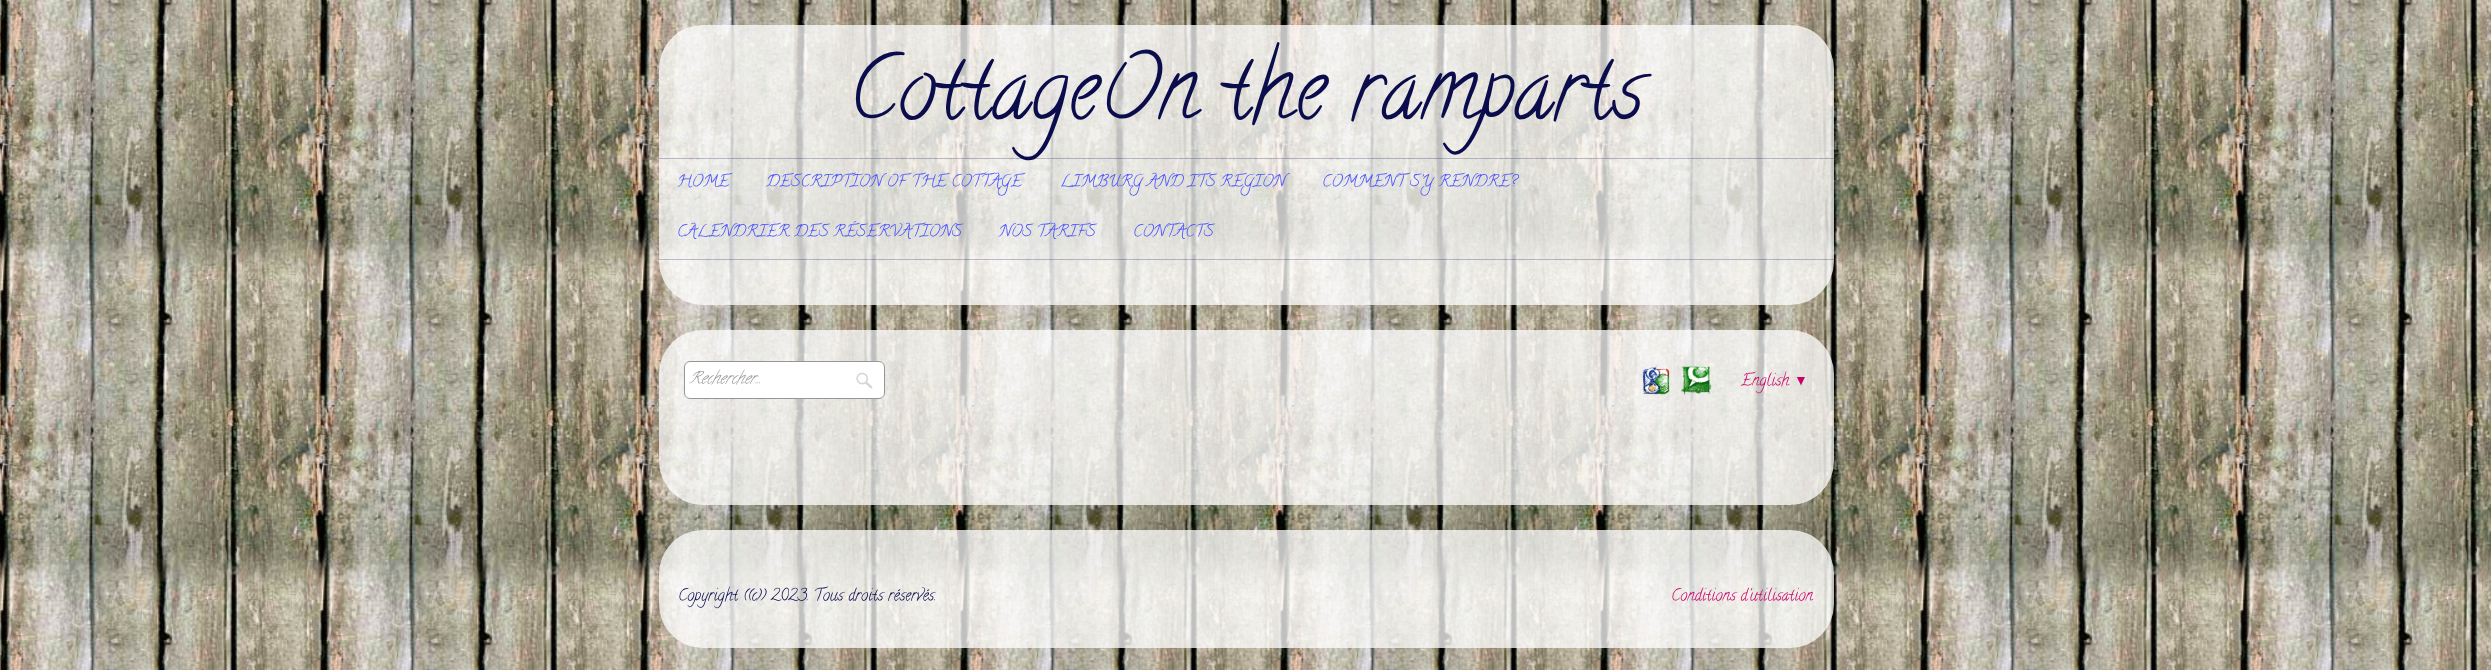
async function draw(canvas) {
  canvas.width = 2491
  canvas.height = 670
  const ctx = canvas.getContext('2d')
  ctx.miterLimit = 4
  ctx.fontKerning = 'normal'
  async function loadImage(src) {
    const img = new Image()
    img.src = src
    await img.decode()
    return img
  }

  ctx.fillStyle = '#fff'
  ctx.fillRect(0, 0, 2491, 670)
  ctx.drawImage(await loadImage('image0.png'), 0, 0, 2491, 670)
  ctx.fillStyle = '#ffffffbf'
  ctx.beginPath()
  ctx.roundRect(659, 25, 1175, 280, 44)
  ctx.fill()
  ctx.fillStyle = '#0b0c4c40'
  ctx.fillRect(659, 158, 1175, 1)
  ctx.font = '87.5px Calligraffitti'
  ctx.fillStyle = '#0b0c4c'
  ctx.fillText('CottageOn the ramparts', 848, 116)
  ctx.fillStyle = '#0b0c4c40'
  ctx.fillRect(659, 259, 1175, 1)
  ctx.font = '16.25px Calligraffitti'
  ctx.fillStyle = '#4751ff'
  ctx.fillText('HOME', 677, 186)
  ctx.fillText('DESCRIPTION OF THE COTTAGE', 766, 186)
  ctx.fillText('LIMBURG AND ITS REGION', 1060, 186)
  ctx.fillText('COMMENT S\'Y RENDRE?', 1322, 186)
  ctx.fillText('CALENDRIER DES RÉSERVATIONS', 677, 236)
  ctx.fillText('NOS TARIFS', 999, 236)
  ctx.fillText('CONTACTS', 1133, 236)
  ctx.fillStyle = '#ffffffbf'
  ctx.beginPath()
  ctx.roundRect(659, 330, 1175, 175, 44)
  ctx.fill()
  ctx.fillStyle = '#fff'
  ctx.beginPath()
  ctx.roundRect(684, 361, 201, 38, 6)
  ctx.fill()
  ctx.drawImage(await loadImage('image1.png'), 856, 372, 17, 17)
  ctx.beginPath()
  ctx.roundRect(684.5, 361.5, 200, 37, 5.5)
  ctx.strokeStyle = '#969696'
  ctx.stroke()
  ctx.font = 'italic 16.25px Calligraffitti'
  ctx.fillStyle = '#999'
  ctx.fillText('Rechercher...', 689, 383)
  ctx.drawImage(await loadImage('image2.png'), 1642, 365, 28, 30)
  ctx.drawImage(await loadImage('image3.png'), 1681, 365, 31, 30)
  ctx.font = '16.25px Calligraffitti'
  ctx.fillStyle = '#cc0069'
  ctx.fillText('English', 1741, 385)
  ctx.font = '14px Liberation Serif'
  ctx.fillText('▼', 1794, 385)
  ctx.fillStyle = '#ffffffbf'
  ctx.beginPath()
  ctx.roundRect(659, 530, 1175, 118, 44)
  ctx.fill()
  ctx.font = '16.25px Calligraffitti'
  ctx.fillStyle = '#0b0c4c'
  ctx.fillText('Copyright ((c)) 2023. Tous droits réservés.', 678, 600)
  ctx.fillStyle = '#cc0069'
  ctx.fillText('Conditions d\'utilisation', 1671, 600)
}

draw(document.querySelector('canvas'))
